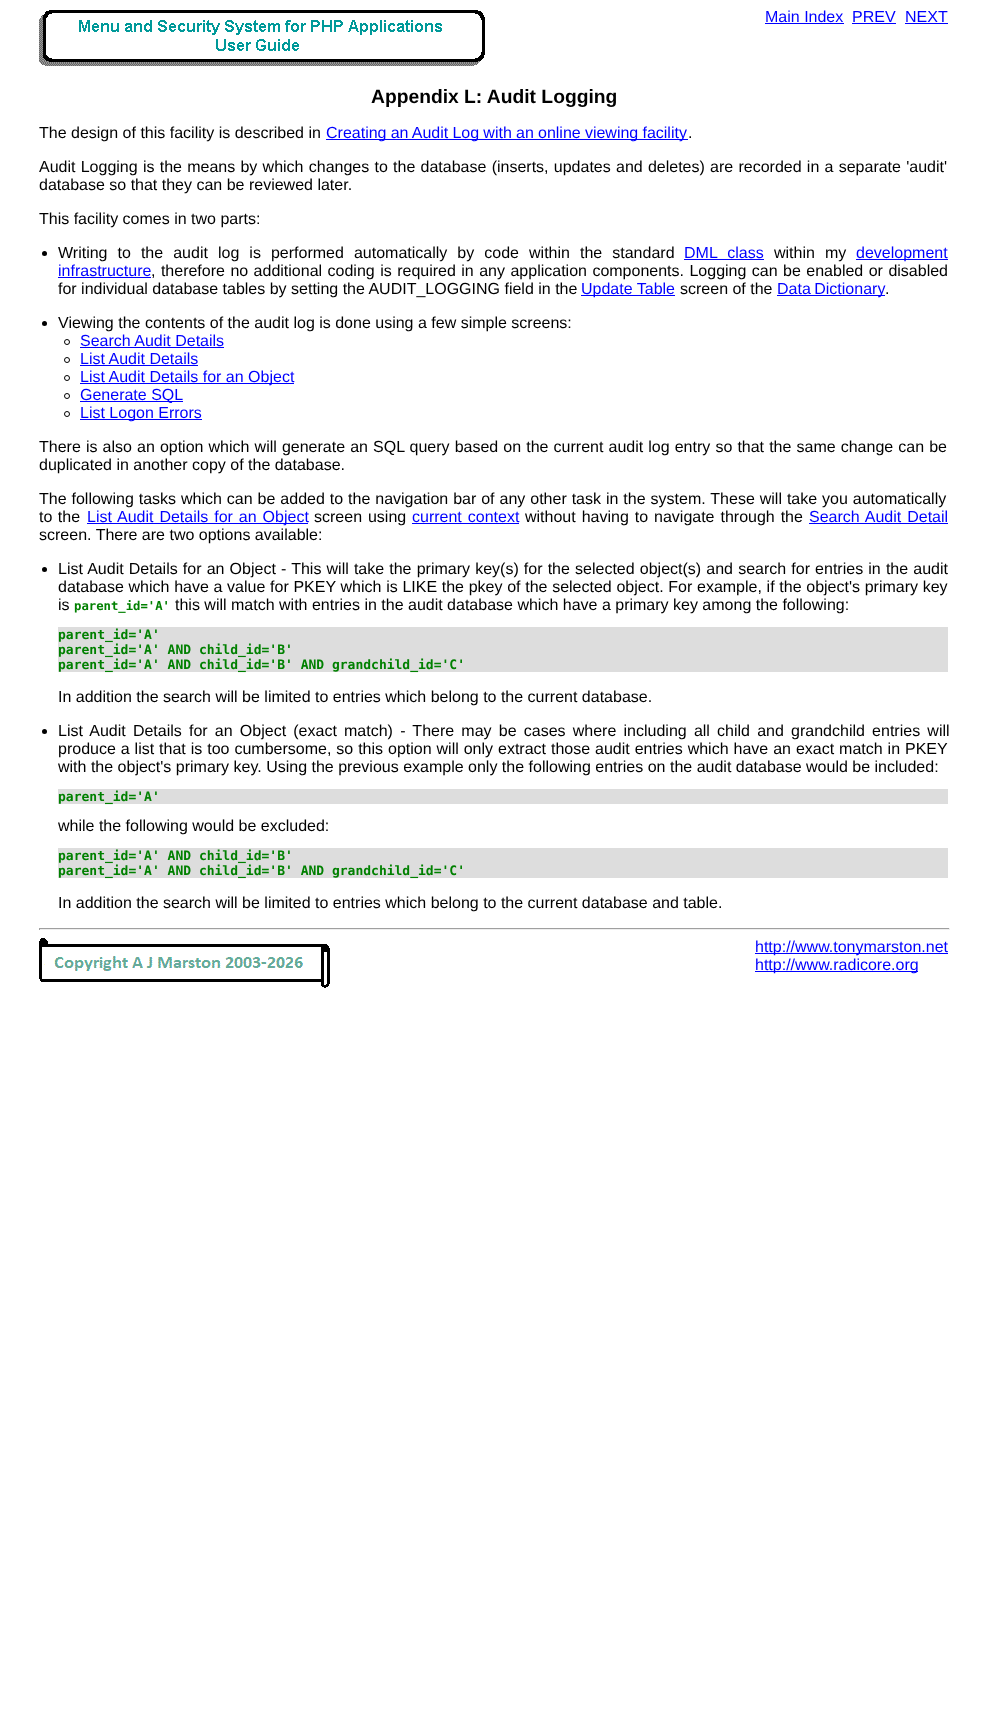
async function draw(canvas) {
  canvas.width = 987
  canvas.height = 1735
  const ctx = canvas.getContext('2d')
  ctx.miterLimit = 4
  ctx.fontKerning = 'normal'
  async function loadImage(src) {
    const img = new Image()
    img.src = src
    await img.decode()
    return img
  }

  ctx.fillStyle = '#fff'
  ctx.fillRect(0, 0, 987, 1735)
  ctx.drawImage(await loadImage('image0.png'), 39, 10, 446, 56)
  ctx.font = '16px Liberation Sans'
  ctx.fillStyle = '#00f'
  ctx.fillText('Main Index', 765, 22)
  ctx.fillRect(765, 23, 79, 1)
  ctx.fillText('PREV', 852, 22)
  ctx.fillRect(852, 23, 44, 1)
  ctx.fillText('NEXT', 905, 22)
  ctx.fillRect(905, 23, 43, 1)
  ctx.font = 'bold 19.25px Liberation Sans'
  ctx.fillStyle = '#000'
  ctx.fillText('Appendix L: Audit Logging', 371, 103)
  ctx.font = '16px Liberation Sans'
  ctx.fillText('The design of this facility is described in', 39, 138)
  ctx.fillStyle = '#00f'
  ctx.fillRect(326, 139, 362, 1)
  ctx.wordSpacing = '-0.25px'
  ctx.fillText('Creating an Audit Log with an online viewing facility', 326, 138)
  ctx.wordSpacing = '0px'
  ctx.fillStyle = '#000'
  ctx.fillText('.', 688, 138)
  ctx.wordSpacing = '0.8px'
  ctx.fillText('Audit Logging is the means by which changes to the database (inserts, updates and deletes) are recorded in a separate \'audit\'', 39, 172)
  ctx.wordSpacing = '0px'
  ctx.fillText('database so that they can be reviewed later.', 39, 190)
  ctx.fillText('This facility comes in two parts:', 39, 224)
  ctx.beginPath()
  ctx.arc(44.5, 253.5, 2.5, 0, 2 * Math.PI)
  ctx.fill()
  ctx.wordSpacing = '5.6px'
  ctx.fillText('Writing to the audit log is performed automatically by code within the standard', 58, 258)
  ctx.fillStyle = '#00f'
  ctx.fillText('DML class', 684, 258)
  ctx.fillRect(684, 259, 80, 1)
  ctx.fillStyle = '#000'
  ctx.fillText('within my', 774, 258)
  ctx.fillStyle = '#00f'
  ctx.fillRect(856, 259, 92, 1)
  ctx.wordSpacing = '0px'
  ctx.fillText('development', 856, 258)
  ctx.fillText('infrastructure', 58, 276)
  ctx.fillRect(58, 277, 93, 1)
  ctx.wordSpacing = '1px'
  ctx.fillStyle = '#000'
  ctx.fillText(', therefore no additional coding is required in any application components. Logging can be enabled or disabled', 151, 276)
  ctx.wordSpacing = '0px'
  ctx.fillText('for individual database tables by setting the AUDIT_LOGGING field in the', 58, 294)
  ctx.fillStyle = '#00f'
  ctx.fillRect(581, 295, 94, 1)
  ctx.fillText('Update Table', 581, 294)
  ctx.fillStyle = '#000'
  ctx.fillText('screen of the', 680, 294)
  ctx.fillStyle = '#00f'
  ctx.fillRect(777, 295, 108, 1)
  ctx.wordSpacing = '-1px'
  ctx.fillText('Data Dictionary', 777, 294)
  ctx.wordSpacing = '0px'
  ctx.fillStyle = '#000'
  ctx.fillText('.', 885, 294)
  ctx.beginPath()
  ctx.arc(44.5, 323.5, 2.5, 0, 2 * Math.PI)
  ctx.fill()
  ctx.fillText('Viewing the contents of the audit log is done using a few simple screens:', 58, 328)
  ctx.beginPath()
  ctx.arc(67, 342, 2.5, 0, 2 * Math.PI)
  ctx.strokeStyle = '#000'
  ctx.stroke()
  ctx.fillStyle = '#00f'
  ctx.fillText('Search Audit Details', 80, 346)
  ctx.fillRect(80, 347, 144, 1)
  ctx.beginPath()
  ctx.arc(67, 360, 2.5, 0, 2 * Math.PI)
  ctx.stroke()
  ctx.fillText('List Audit Details', 80, 364)
  ctx.fillRect(80, 365, 118, 1)
  ctx.beginPath()
  ctx.arc(67, 378, 2.5, 0, 2 * Math.PI)
  ctx.stroke()
  ctx.fillRect(80, 383, 214, 1)
  ctx.fillText('List Audit Details for an Object', 80, 382)
  ctx.beginPath()
  ctx.arc(67, 396, 2.5, 0, 2 * Math.PI)
  ctx.stroke()
  ctx.fillRect(80, 401, 103, 1)
  ctx.fillText('Generate SQL', 80, 400)
  ctx.beginPath()
  ctx.arc(67, 414, 2.5, 0, 2 * Math.PI)
  ctx.stroke()
  ctx.fillRect(80, 419, 122, 1)
  ctx.fillText('List Logon Errors', 80, 418)
  ctx.wordSpacing = '0.65px'
  ctx.fillStyle = '#000'
  ctx.fillText('There is also an option which will generate an SQL query based on the current audit log entry so that the same change can be', 39, 452)
  ctx.wordSpacing = '0px'
  ctx.fillText('duplicated in another copy of the database.', 39, 470)
  ctx.wordSpacing = '0.5px'
  ctx.fillText('The following tasks which can be added to the navigation bar of any other task in the system. These will take you automatically', 39, 504)
  ctx.wordSpacing = '1px'
  ctx.fillText('to the', 39, 522)
  ctx.fillStyle = '#00f'
  ctx.fillRect(87, 523, 221, 1)
  ctx.wordSpacing = '1.5px'
  ctx.fillText('List Audit Details for an Object', 87, 522)
  ctx.fillStyle = '#000'
  ctx.fillText('screen using', 314, 522)
  ctx.fillStyle = '#00f'
  ctx.fillText('current context', 412, 522)
  ctx.fillRect(412, 523, 107, 1)
  ctx.fillStyle = '#000'
  ctx.fillText('without having to navigate through the', 525, 522)
  ctx.fillStyle = '#00f'
  ctx.fillText('Search Audit Detail', 809, 522)
  ctx.fillRect(809, 523, 139, 1)
  ctx.wordSpacing = '0px'
  ctx.fillStyle = '#000'
  ctx.fillText('screen. There are two options available:', 39, 540)
  ctx.beginPath()
  ctx.arc(44.5, 569.5, 2.5, 0, 2 * Math.PI)
  ctx.fill()
  ctx.wordSpacing = '0.7px'
  ctx.fillText('List Audit Details for an Object - This will take the primary key(s) for the selected object(s) and search for entries in the audit', 58, 574)
  ctx.wordSpacing = '0.25px'
  ctx.fillText('database which have a value for PKEY which is LIKE the pkey of the selected object. For example, if the object\'s primary key', 58, 592)
  ctx.wordSpacing = '0px'
  ctx.fillText('is', 58, 610)
  ctx.font = 'bold 12.25px DejaVu Sans Mono'
  ctx.fillStyle = '#008000'
  ctx.fillText('parent_id=\'A\'', 74, 610)
  ctx.font = '16px Liberation Sans'
  ctx.fillStyle = '#000'
  ctx.fillText('this will match with entries in the audit database which have a primary key among the following:', 175, 610)
  ctx.fillStyle = '#ddd'
  ctx.fillRect(58, 627, 890, 45)
  ctx.font = 'bold 13px DejaVu Sans Mono'
  ctx.fillStyle = '#008000'
  ctx.fillText('parent_id=\'A\'', 58, 639)
  ctx.fillText('parent_id=\'A\' AND child_id=\'B\'', 58, 654)
  ctx.fillText('parent_id=\'A\' AND child_id=\'B\' AND grandchild_id=\'C\'', 58, 669)
  ctx.font = '16px Liberation Sans'
  ctx.fillStyle = '#000'
  ctx.fillText('In addition the search will be limited to entries which belong to the current database.', 58, 702)
  ctx.beginPath()
  ctx.arc(44.5, 731.5, 2.5, 0, 2 * Math.PI)
  ctx.fill()
  ctx.wordSpacing = '2.75px'
  ctx.fillText('List Audit Details for an Object (exact match) - There may be cases where including all child and grandchild entries will', 58, 736)
  ctx.wordSpacing = '0.5px'
  ctx.fillText('produce a list that is too cumbersome, so this option will only extract those audit entries which have an exact match in PKEY', 58, 754)
  ctx.wordSpacing = '0px'
  ctx.fillText('with the object\'s primary key. Using the previous example only the following entries on the audit database would be included:', 58, 772)
  ctx.fillStyle = '#ddd'
  ctx.fillRect(58, 789, 890, 15)
  ctx.font = 'bold 13px DejaVu Sans Mono'
  ctx.fillStyle = '#008000'
  ctx.fillText('parent_id=\'A\'', 58, 801)
  ctx.font = '16px Liberation Sans'
  ctx.fillStyle = '#000'
  ctx.fillText('while the following would be excluded:', 58, 831)
  ctx.fillStyle = '#ddd'
  ctx.fillRect(58, 848, 890, 30)
  ctx.font = 'bold 13px DejaVu Sans Mono'
  ctx.fillStyle = '#008000'
  ctx.fillText('parent_id=\'A\' AND child_id=\'B\'', 58, 860)
  ctx.fillText('parent_id=\'A\' AND child_id=\'B\' AND grandchild_id=\'C\'', 58, 875)
  ctx.font = '16px Liberation Sans'
  ctx.fillStyle = '#000'
  ctx.fillText('In addition the search will be limited to entries which belong to the current database and table.', 58, 908)
  ctx.fillStyle = '#9f9f9f'
  ctx.fillRect(39, 928, 911, 1)
  ctx.fillStyle = '#eee'
  ctx.fillRect(949, 928, 1, 2)
  ctx.fillRect(39, 929, 911, 1)
  ctx.fillStyle = '#9f9f9f'
  ctx.fillRect(39, 928, 1, 2)
  ctx.drawImage(await loadImage('image1.png'), 39, 938, 291, 50)
  ctx.fillStyle = '#00f'
  ctx.fillRect(755, 953, 193, 1)
  ctx.fillText('http://www.tonymarston.net', 755, 952)
  ctx.fillRect(755, 971, 163, 1)
  ctx.fillText('http://www.radicore.org', 755, 970)
}

draw(document.querySelector('canvas'))
